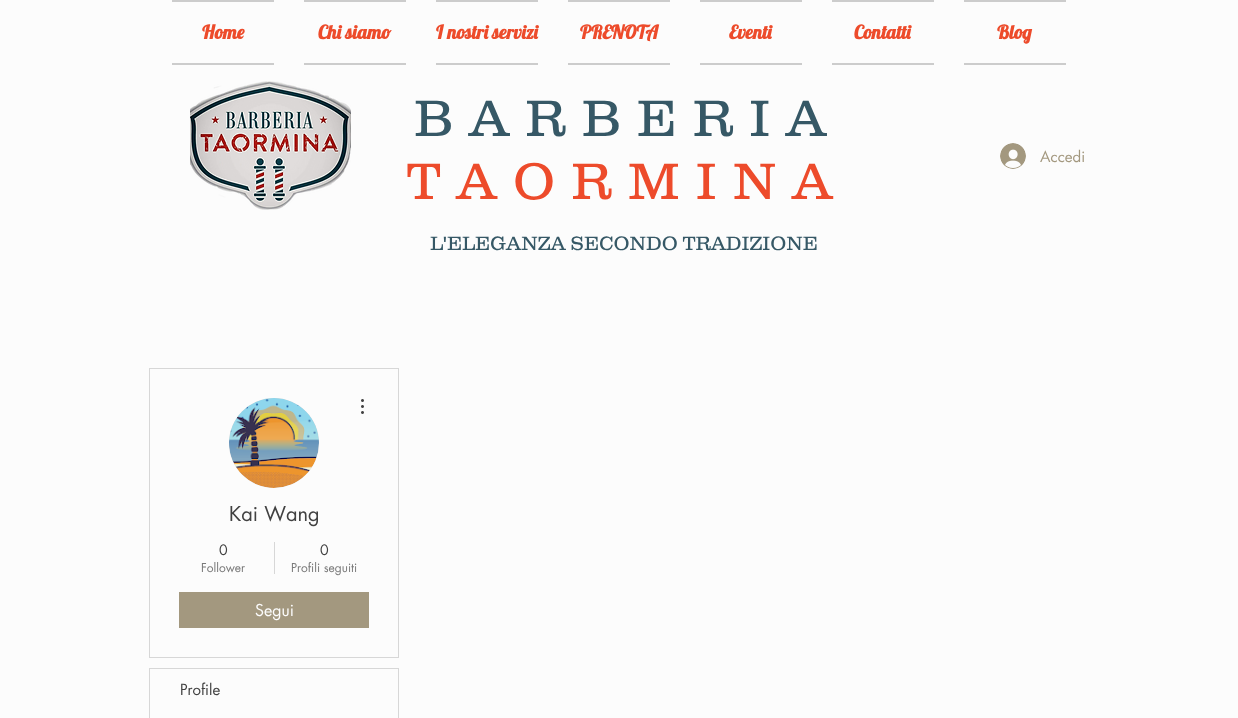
async function draw(canvas) {
  canvas.width = 1238
  canvas.height = 718
  const ctx = canvas.getContext('2d')
  ctx.miterLimit = 4
  ctx.fontKerning = 'none'
  async function loadImage(src) {
    const img = new Image()
    img.src = src
    await img.decode()
    return img
  }

  ctx.fillStyle = '#fcfcfc'
  ctx.fillRect(0, 0, 1238, 718)
  ctx.fillStyle = '#ccc'
  ctx.fillRect(172, 0, 102, 2)
  ctx.fillRect(172, 63, 102, 2)
  ctx.font = 'bold 19px Lobster'
  ctx.fillStyle = '#ed4b2b'
  ctx.fillText('Home', 202, 39)
  ctx.fillStyle = '#ccc'
  ctx.fillRect(304, 0, 102, 2)
  ctx.fillRect(304, 63, 102, 2)
  ctx.fillStyle = '#ed4b2b'
  ctx.fillText('Chi siamo', 318, 39)
  ctx.fillStyle = '#ccc'
  ctx.fillRect(436, 0, 102, 2)
  ctx.fillRect(436, 63, 102, 2)
  ctx.fillStyle = '#ed4b2b'
  ctx.fillText('I nostri servizi', 436, 39)
  ctx.fillStyle = '#ccc'
  ctx.fillRect(568, 0, 102, 2)
  ctx.fillRect(568, 63, 102, 2)
  ctx.fillStyle = '#ed4b2b'
  ctx.fillText('PRENOTA', 580, 39)
  ctx.fillStyle = '#ccc'
  ctx.fillRect(700, 0, 102, 2)
  ctx.fillRect(700, 63, 102, 2)
  ctx.fillStyle = '#ed4b2b'
  ctx.fillText('Eventi', 729, 39)
  ctx.fillStyle = '#ccc'
  ctx.fillRect(832, 0, 102, 2)
  ctx.fillRect(832, 63, 102, 2)
  ctx.fillStyle = '#ed4b2b'
  ctx.fillText('Contatti', 854, 39)
  ctx.fillStyle = '#ccc'
  ctx.fillRect(964, 0, 102, 2)
  ctx.fillRect(964, 63, 102, 2)
  ctx.fillStyle = '#ed4b2b'
  ctx.fillText('Blog', 997, 39)
  ctx.drawImage(await loadImage('image0.png'), 190, 81, 161, 129)
  ctx.letterSpacing = '16px'
  ctx.font = '300 53px "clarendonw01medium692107"'
  ctx.fillStyle = '#365866'
  ctx.fillText('BARBERIA', 414, 136)
  ctx.fillStyle = '#ed4b2b'
  ctx.fillText('TAORMINA', 407, 199)
  ctx.drawImage(await loadImage('image1.png'), 1000, 143, 26, 26)
  ctx.letterSpacing = '0px'
  ctx.font = '15px futura'
  ctx.fillStyle = '#a3987f'
  ctx.fillText('Accedi', 1040, 162)
  ctx.font = '300 20px "clarendonw01medium692107"'
  ctx.fillStyle = '#365866'
  ctx.fillText('L\'ELEGANZA SECONDO TRADIZIONE', 430, 250)
  ctx.strokeStyle = '#d7d7d7'
  ctx.strokeRect(149.5, 368.5, 249, 289)
  ctx.fillStyle = '#d8d8d8'
  ctx.beginPath()
  ctx.arc(274, 443, 45, 0, 2 * Math.PI)
  ctx.fill()
  ctx.drawImage(await loadImage('image2.png'), 229, 398, 90, 90)
  ctx.drawImage(await loadImage('image3.png'), 361, 399, 3, 15)
  ctx.font = '20px futura'
  ctx.fillStyle = '#414141'
  ctx.fillText('Kai Wang', 229, 521)
  ctx.font = '14px futura'
  ctx.fillText('0', 219, 555)
  ctx.font = '12px futura'
  ctx.fillStyle = '#797979'
  ctx.fillText('Follower', 201, 572)
  ctx.fillStyle = '#d7d7d7'
  ctx.fillRect(274, 542, 1, 32)
  ctx.font = '14px futura'
  ctx.fillStyle = '#414141'
  ctx.fillText('0', 320, 555)
  ctx.font = '12px futura'
  ctx.fillStyle = '#797979'
  ctx.fillText('Profili seguiti', 291, 572)
  ctx.fillStyle = '#a3987f'
  ctx.fillRect(179, 592, 190, 36)
  ctx.font = '16px futura'
  ctx.fillStyle = '#fcfcfc'
  ctx.fillText('Segui', 255, 616)
  ctx.strokeRect(149.5, 668.5, 249, 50)
  ctx.font = '15px futura'
  ctx.fillStyle = '#414141'
  ctx.fillText('Profile', 180, 695)
}

draw(document.querySelector('canvas'))
